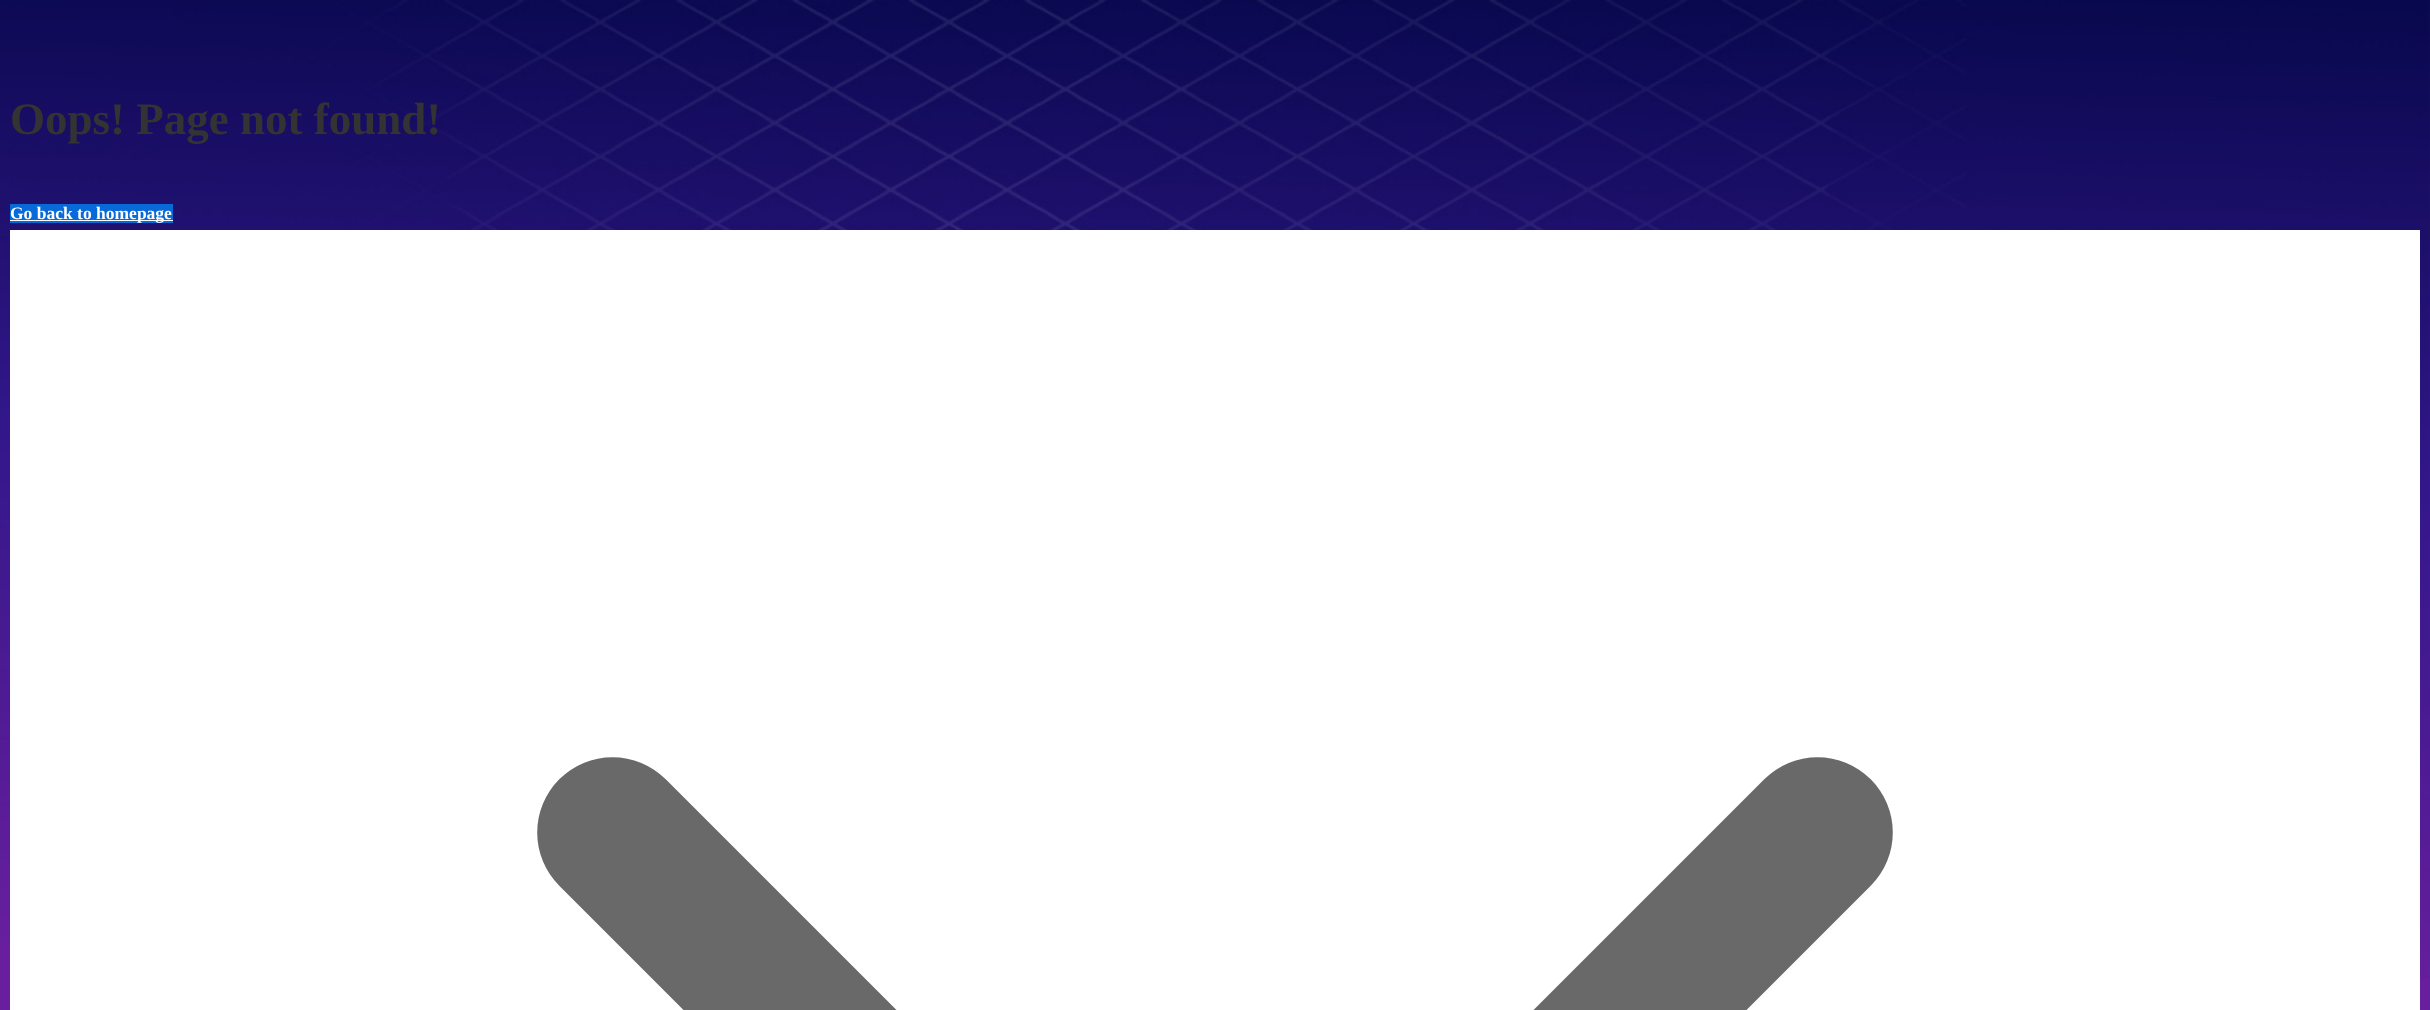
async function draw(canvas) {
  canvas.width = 2430
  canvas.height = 1010
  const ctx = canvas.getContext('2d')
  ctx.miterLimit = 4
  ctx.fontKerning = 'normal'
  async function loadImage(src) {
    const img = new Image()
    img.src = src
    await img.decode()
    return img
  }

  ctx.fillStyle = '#681f9d'
  ctx.fillRect(0, 0, 2430, 1010)
  ctx.drawImage(await loadImage('image0.png'), 0, 0, 2430, 979)
  ctx.font = 'bold 45px Liberation Serif'
  ctx.fillStyle = '#333'
  ctx.fillText('Oops! Page not found!', 10, 134)
  ctx.fillStyle = '#086ad8'
  ctx.fillRect(10, 204, 163, 19)
  ctx.fillStyle = '#fff'
  ctx.fillRect(10, 220, 163, 1)
  ctx.font = 'bold 17.5px Liberation Serif'
  ctx.fillText('Go back to homepage', 10, 219)
  ctx.fillRect(10, 230, 2410, 780)
  ctx.beginPath()
  ctx.moveTo(612.5, 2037.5)
  ctx.lineTo(1817.5, 832.5)
  ctx.moveTo(612.5, 832.5)
  ctx.lineTo(1817.5, 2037.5)
  ctx.strokeStyle = '#696969'
  ctx.lineWidth = 150.6
  ctx.lineCap = 'round'
  ctx.lineJoin = 'round'
  ctx.stroke()
}

draw(document.querySelector('canvas'))
